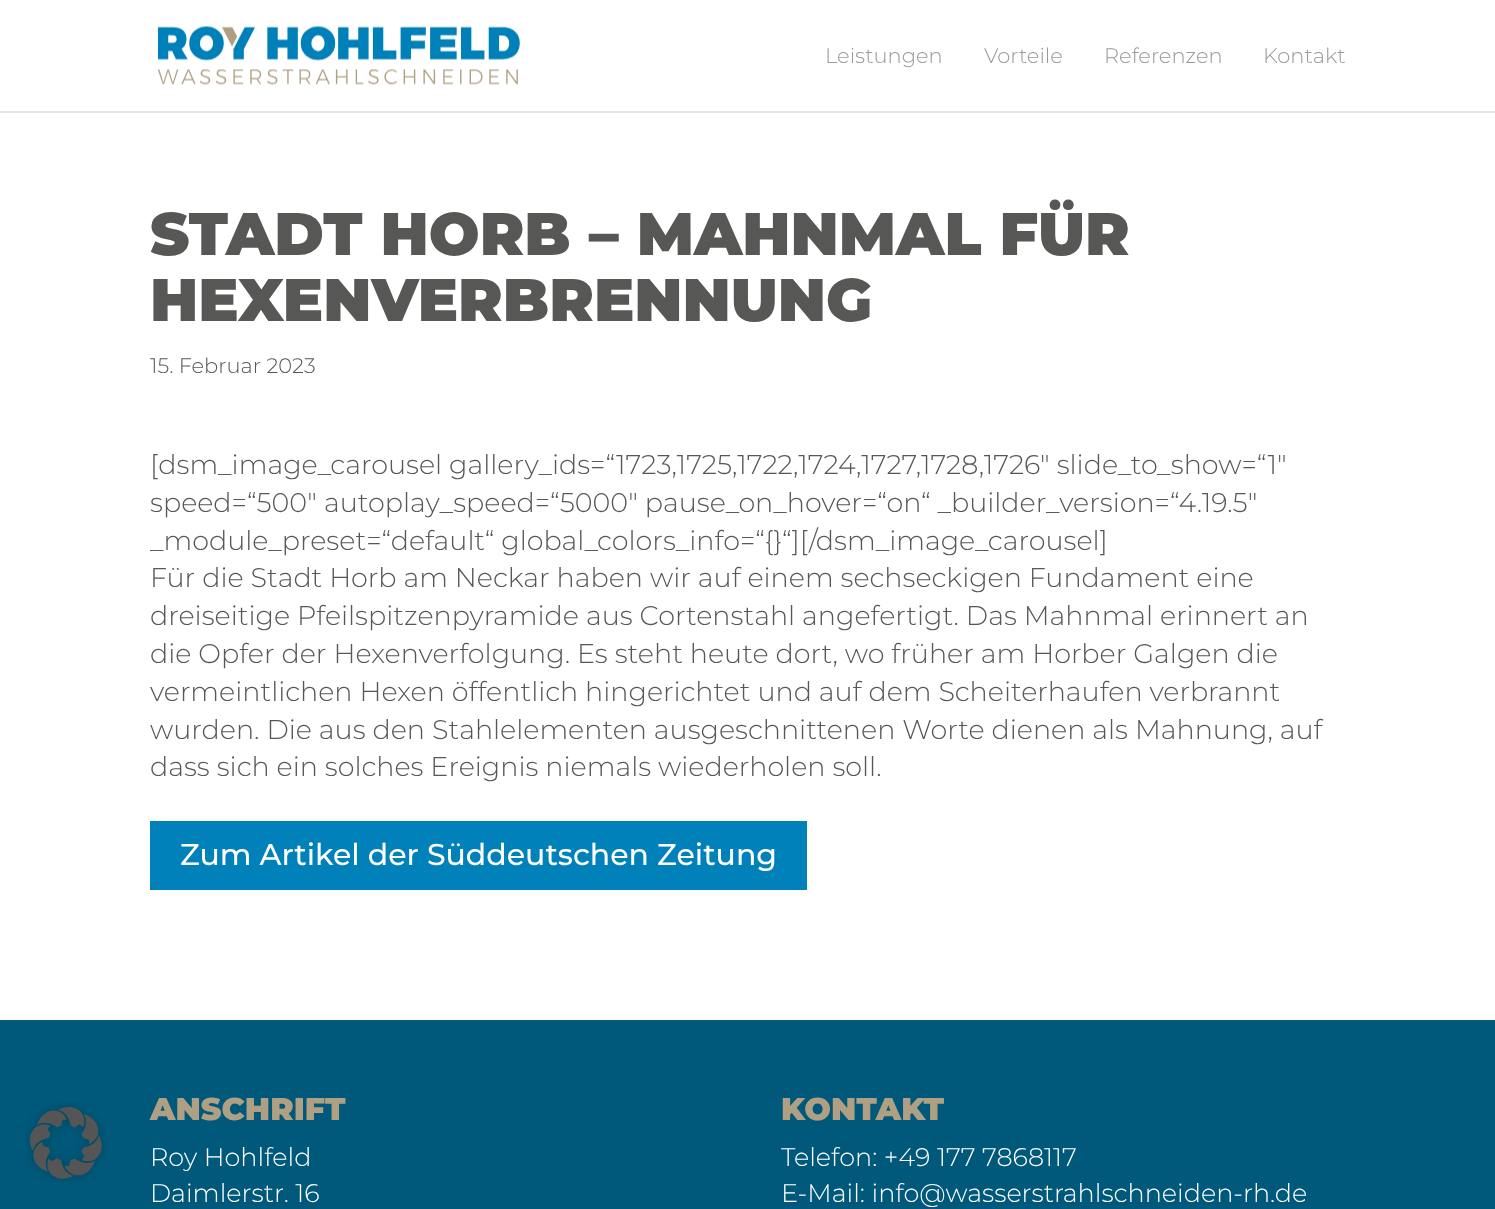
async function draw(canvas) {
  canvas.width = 1495
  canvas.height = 1209
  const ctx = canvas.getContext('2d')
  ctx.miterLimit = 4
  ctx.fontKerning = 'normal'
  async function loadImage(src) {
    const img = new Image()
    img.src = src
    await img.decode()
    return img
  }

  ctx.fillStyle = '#fff'
  ctx.fillRect(0, 0, 1495, 1209)
  ctx.fillStyle = '#00597a'
  ctx.fillRect(0, 1020, 1495, 189)
  ctx.drawImage(await loadImage('image0.png'), 25, 1102, 81, 81)
  ctx.fillStyle = '#e6e6e6'
  ctx.beginPath()
  ctx.moveTo(0, 111)
  ctx.lineTo(0, 113)
  ctx.lineTo(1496, 113)
  ctx.lineTo(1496, 2)
  ctx.lineTo(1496, 111)
  ctx.closePath()
  ctx.fill()
  ctx.drawImage(await loadImage('image1.png'), 158, 26, 362, 59)
  ctx.font = '300 21px Montserrat'
  ctx.fillStyle = '#9a9a9a'
  ctx.fillText('Leistungen', 825, 63)
  ctx.fillText('Vorteile', 984, 63)
  ctx.fillText('Referenzen', 1104, 63)
  ctx.fillText('Kontakt', 1263, 63)
  ctx.font = '900 60px Montserrat'
  ctx.fillStyle = '#575756'
  ctx.fillText('STADT HORB – MAHNMAL FÜR', 150, 255)
  ctx.fillText('HEXENVERBRENNUNG', 150, 321)
  ctx.font = '300 21px Montserrat'
  ctx.fillText('15. Februar 2023', 150, 373)
  ctx.font = '300 27px Montserrat'
  ctx.fillText('[dsm_image_carousel gallery_ids=“1723,1725,1722,1724,1727,1728,1726″ slide_to_show=“1″', 150, 474)
  ctx.fillText('speed=“500″ autoplay_speed=“5000″ pause_on_hover=“on“ _builder_version=“4.19.5″', 150, 512)
  ctx.fillText('_module_preset=“default“ global_colors_info=“{}“][/dsm_image_carousel]', 150, 550)
  ctx.fillText('Für die Stadt Horb am Neckar haben wir auf einem sechseckigen Fundament eine', 150, 587)
  ctx.fillText('dreiseitige Pfeilspitzenpyramide aus Cortenstahl angefertigt. Das Mahnmal erinnert an', 150, 625)
  ctx.fillText('die Opfer der Hexenverfolgung. Es steht heute dort, wo früher am Horber Galgen die', 150, 663)
  ctx.fillText('vermeintlichen Hexen öffentlich hingerichtet und auf dem Scheiterhaufen verbrannt', 150, 701)
  ctx.fillText('wurden. Die aus den Stahlelementen ausgeschnittenen Worte dienen als Mahnung, auf', 150, 739)
  ctx.fillText('dass sich ein solches Ereignis niemals wiederholen soll.', 150, 776)
  ctx.fillStyle = '#0081b9'
  ctx.fillRect(150, 821, 657, 69)
  ctx.font = '500 30px Montserrat'
  ctx.fillStyle = '#fff'
  ctx.fillText('Zum Artikel der Süddeutschen Zeitung', 180, 865)
  ctx.font = '900 31.5px Montserrat'
  ctx.fillStyle = '#af9f83'
  ctx.fillText('ANSCHRIFT', 150, 1120)
  ctx.font = '300 25.5px Montserrat'
  ctx.fillStyle = '#fff'
  ctx.fillText('Roy Hohlfeld', 150, 1166)
  ctx.fillText('Daimlerstr. 16', 150, 1202)
  ctx.font = '900 31.5px Montserrat'
  ctx.fillStyle = '#af9f83'
  ctx.fillText('KONTAKT', 781, 1120)
  ctx.font = '300 25.5px Montserrat'
  ctx.fillStyle = '#fff'
  ctx.fillText('Telefon: +49 177 7868117', 781, 1166)
  ctx.fillText('E-Mail: info@wasserstrahlschneiden-rh.de', 781, 1202)
}

draw(document.querySelector('canvas'))
